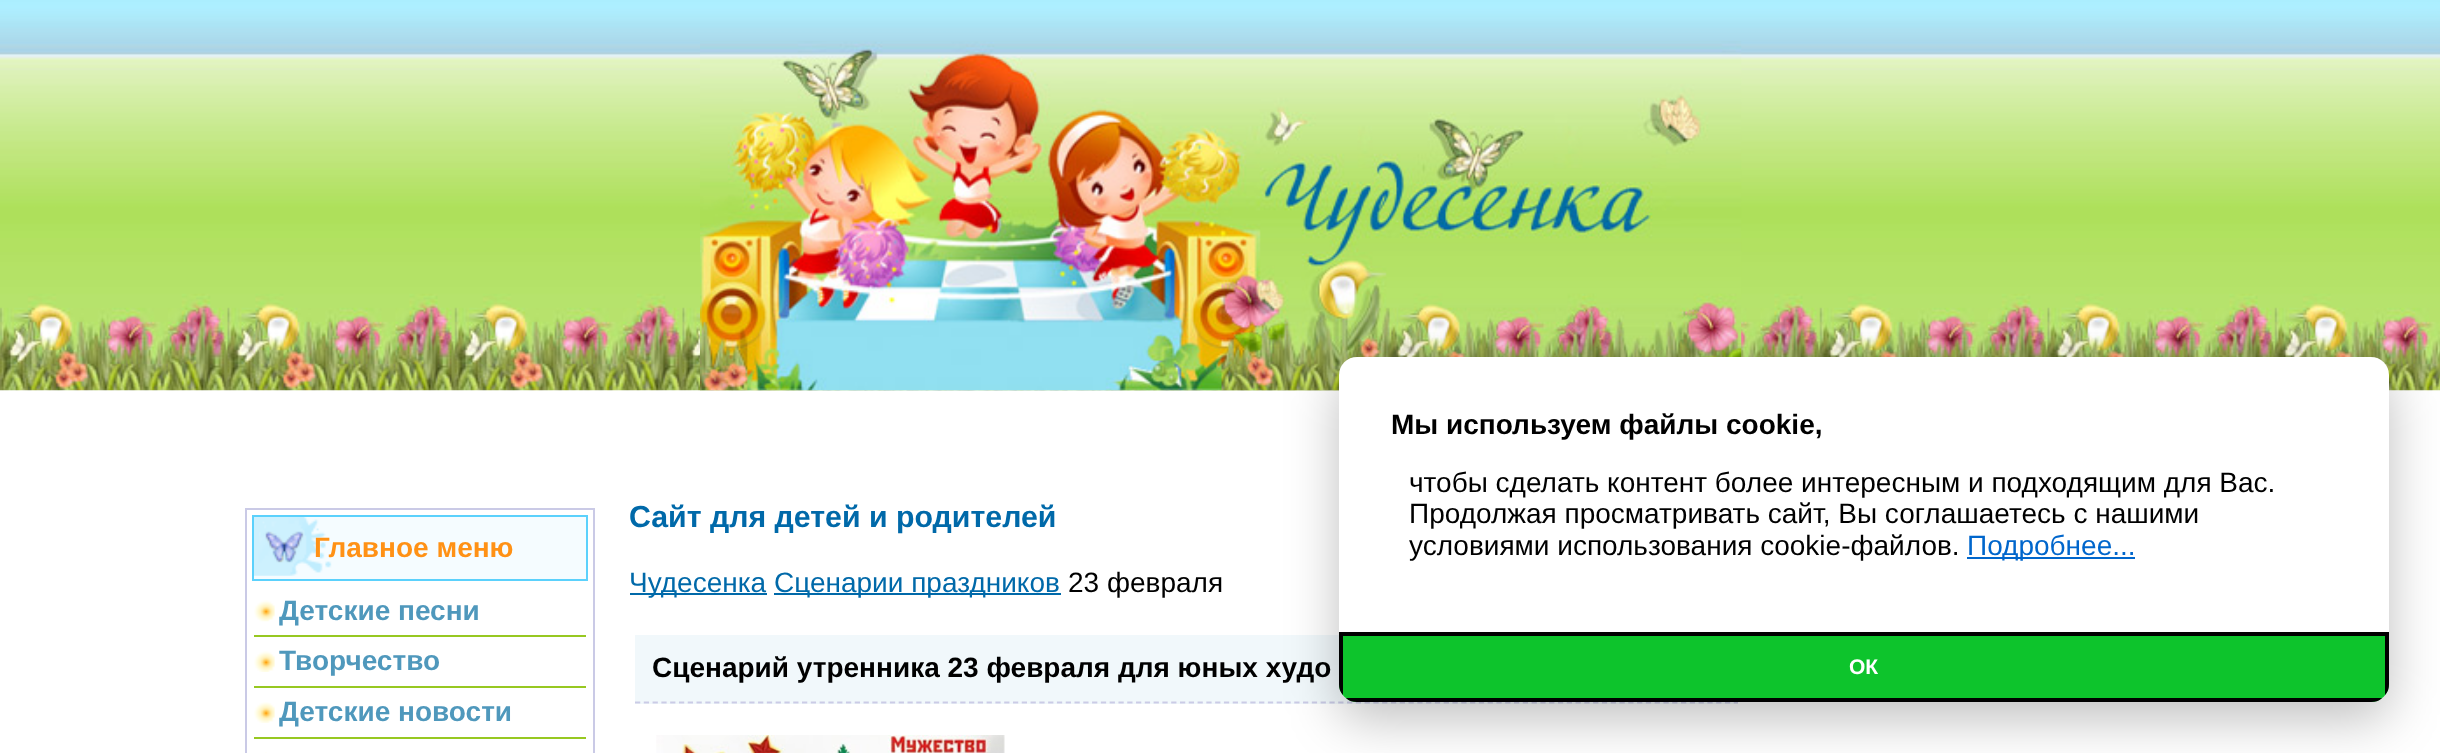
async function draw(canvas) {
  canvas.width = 2440
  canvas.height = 753
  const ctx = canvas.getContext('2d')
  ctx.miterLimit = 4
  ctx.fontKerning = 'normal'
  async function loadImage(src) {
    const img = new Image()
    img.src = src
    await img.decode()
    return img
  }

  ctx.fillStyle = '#fff'
  ctx.fillRect(0, 0, 2440, 753)
  ctx.drawImage(await loadImage('image0.png'), 0, 0, 2440, 391)
  ctx.drawImage(await loadImage('image1.png'), 700, 41, 1042, 350)
  ctx.strokeStyle = '#cacae6'
  ctx.lineWidth = 2
  ctx.strokeRect(246, 509, 348, 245)
  ctx.fillStyle = '#f5fcff'
  ctx.fillRect(254, 517, 332, 62)
  ctx.drawImage(await loadImage('image2.png'), 254, 517, 78, 59)
  ctx.strokeStyle = '#5bd1fc'
  ctx.strokeRect(253, 516, 334, 64)
  ctx.font = 'bold 28px Liberation Sans'
  ctx.fillStyle = '#ff9115'
  ctx.fillText('Главное меню', 314, 557)
  ctx.drawImage(await loadImage('image3.png'), 254, 600, 21, 22)
  ctx.fillStyle = '#97c821'
  ctx.fillRect(254, 635, 332, 2)
  ctx.fillStyle = '#4f98bc'
  ctx.fillText('Детские песни', 279, 620)
  ctx.drawImage(await loadImage('image4.png'), 254, 651, 21, 21)
  ctx.fillStyle = '#97c821'
  ctx.fillRect(254, 686, 332, 2)
  ctx.fillStyle = '#4f98bc'
  ctx.fillText('Творчество', 279, 670)
  ctx.drawImage(await loadImage('image5.png'), 254, 702, 21, 21)
  ctx.fillStyle = '#97c821'
  ctx.fillRect(254, 737, 332, 2)
  ctx.fillStyle = '#4f98bc'
  ctx.fillText('Детские новости', 279, 721)
  ctx.fillStyle = '#fffffb'
  ctx.fillRect(265, 752, 2, 1)
  ctx.font = 'bold 30.3px Liberation Sans'
  ctx.fillStyle = '#0069a9'
  ctx.fillText('Сайт для детей и родителей', 629, 527)
  ctx.fillRect(630, 593, 137, 2)
  ctx.font = '28px Liberation Sans'
  ctx.fillText('Чудесенка', 629, 592)
  ctx.fillRect(774, 593, 287, 2)
  ctx.fillText('Сценарии праздников', 774, 592)
  ctx.fillStyle = '#000'
  ctx.fillText('23 февраля', 1068, 592)
  ctx.fillStyle = '#f1f8fb'
  ctx.fillRect(635, 635, 1103, 69)
  ctx.beginPath()
  ctx.moveTo(635, 702.5)
  ctx.lineTo(1738, 702.5)
  ctx.strokeStyle = '#cbcbe6'
  ctx.lineWidth = 1.8
  ctx.setLineDash([5.25, 3.54])
  ctx.stroke()
  ctx.font = 'bold 28px Liberation Sans'
  ctx.fillStyle = '#000'
  ctx.fillText('Сценарий утренника 23 февраля для юных худо', 652, 677)
  ctx.drawImage(await loadImage('image6.png'), 656, 735, 349, 18)
  ctx.fillStyle = '#00000040'
  ctx.filter = 'blur(26px)'
  ctx.beginPath()
  ctx.roundRect(1339, 375, 1050, 344, 18)
  ctx.fill()
  ctx.filter = 'none'
  ctx.fillStyle = '#fff'
  ctx.beginPath()
  ctx.roundRect(1339, 357, 1050, 345, 18)
  ctx.fill()
  ctx.fillStyle = '#000'
  ctx.fillText('Мы используем файлы cookie,', 1391, 434)
  ctx.font = '28px Liberation Sans'
  ctx.fillText('чтобы сделать контент более интересным и подходящим для Вас.', 1409, 492)
  ctx.fillText('Продолжая просматривать сайт, Вы соглашаетесь с нашими', 1409, 523)
  ctx.fillText('условиями использования cookie-файлов.', 1409, 555)
  ctx.fillStyle = '#06c'
  ctx.fillRect(1967, 557, 168, 2)
  ctx.fillText('Подробнее...', 1967, 555)
  ctx.fillStyle = '#0dc42c'
  ctx.beginPath()
  ctx.roundRect(1339, 632, 1050, 70, [0, 0, 18, 18])
  ctx.fill()
  ctx.fillStyle = '#000'
  ctx.beginPath()
  ctx.moveTo(1343, 636)
  ctx.lineTo(2385, 636)
  ctx.lineTo(2385, 695)
  ctx.bezierCurveTo(2388, 692, 2389, 688, 2389, 684)
  ctx.lineTo(2389, 632)
  ctx.lineTo(1339, 632)
  ctx.lineTo(1339, 684)
  ctx.bezierCurveTo(1339, 688, 1340, 692, 1343, 695)
  ctx.closePath()
  ctx.moveTo(2371, 702)
  ctx.bezierCurveTo(2375, 702, 2379, 701, 2382, 698)
  ctx.lineTo(1346, 698)
  ctx.bezierCurveTo(1349, 701, 1353, 702, 1357, 702)
  ctx.closePath()
  ctx.fill('evenodd')
  ctx.font = 'bold 21px Liberation Sans'
  ctx.fillStyle = '#fff'
  ctx.fillText('ОК', 1849, 674)
}

draw(document.querySelector('canvas'))
